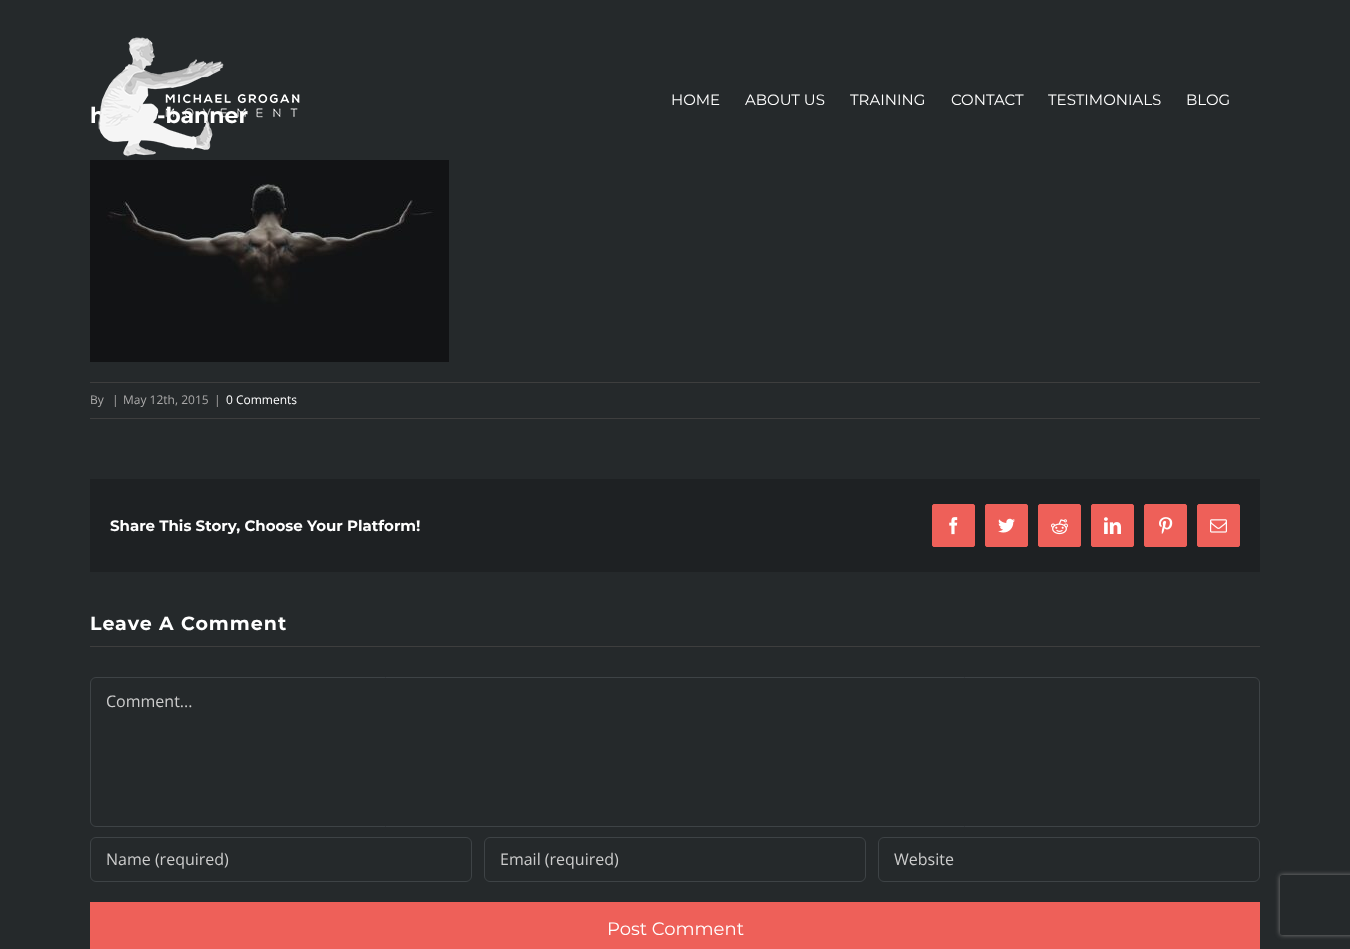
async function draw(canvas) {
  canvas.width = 1350
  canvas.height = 949
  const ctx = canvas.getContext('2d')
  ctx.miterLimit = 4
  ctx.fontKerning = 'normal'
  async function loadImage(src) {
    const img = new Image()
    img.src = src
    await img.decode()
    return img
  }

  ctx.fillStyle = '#25292b'
  ctx.fillRect(0, 0, 1350, 949)
  ctx.font = 'bold 22px Montserrat'
  ctx.fillStyle = '#fff'
  ctx.fillText('h', 90, 123)
  ctx.fillText('-banner', 157, 123)
  ctx.drawImage(await loadImage('image0.png'), 98, 37, 202, 120)
  ctx.font = '15px Montserrat'
  ctx.fillText('HOME', 671, 105)
  ctx.fillText('ABOUT US', 745, 105)
  ctx.fillText('TRAINING', 850, 105)
  ctx.fillText('CONTACT', 951, 105)
  ctx.fillText('TESTIMONIALS', 1048, 105)
  ctx.fillText('BLOG', 1186, 105)
  ctx.drawImage(await loadImage('image1.png'), 90, 160, 359, 202)
  ctx.fillStyle = '#3e3e3e'
  ctx.fillRect(90, 382, 1170, 1)
  ctx.fillRect(90, 418, 1170, 1)
  ctx.font = '12px Open Sans'
  ctx.fillStyle = '#aaa9a9'
  ctx.fillText('By', 90, 404)
  ctx.fillText('|', 112, 404)
  ctx.fillText('May 12th, 2015', 123, 404)
  ctx.fillText('|', 214, 404)
  ctx.fillStyle = '#fff'
  ctx.fillText('0 Comments', 226, 404)
  ctx.fillStyle = '#1e2123'
  ctx.fillRect(90, 479, 1170, 93)
  ctx.font = 'bold 15px Montserrat'
  ctx.fillStyle = '#fff'
  ctx.fillText('Share This Story, Choose Your Platform!', 110, 531)
  ctx.fillStyle = '#ee6059'
  ctx.beginPath()
  ctx.roundRect(932.5, 504.5, 42, 42, 1.5)
  ctx.fill()
  ctx.strokeStyle = '#ee6059'
  ctx.stroke()
  ctx.drawImage(await loadImage('image2.png'), 949, 517, 9, 18)
  ctx.beginPath()
  ctx.roundRect(985.5, 504.5, 42, 42, 1.5)
  ctx.fill()
  ctx.stroke()
  ctx.drawImage(await loadImage('image3.png'), 998, 518, 17, 15)
  ctx.beginPath()
  ctx.roundRect(1038.5, 504.5, 42, 42, 1.5)
  ctx.fill()
  ctx.stroke()
  ctx.drawImage(await loadImage('image4.png'), 1051, 519, 17, 16)
  ctx.beginPath()
  ctx.roundRect(1091.5, 504.5, 42, 42, 1.5)
  ctx.fill()
  ctx.stroke()
  ctx.drawImage(await loadImage('image5.png'), 1104, 517, 17, 17)
  ctx.beginPath()
  ctx.roundRect(1144.5, 504.5, 42, 42, 1.5)
  ctx.fill()
  ctx.stroke()
  ctx.drawImage(await loadImage('image6.png'), 1159, 517, 14, 17)
  ctx.beginPath()
  ctx.roundRect(1197.5, 504.5, 42, 42, 1.5)
  ctx.fill()
  ctx.stroke()
  ctx.drawImage(await loadImage('image7.png'), 1210, 519, 17, 14)
  ctx.fillStyle = '#3e3e3e'
  ctx.fillRect(90, 646, 1170, 1)
  ctx.letterSpacing = '1px'
  ctx.font = 'bold 19px Montserrat'
  ctx.fillStyle = '#fff'
  ctx.fillText('Leave A Comment', 90, 630)
  ctx.beginPath()
  ctx.roundRect(90.5, 677.5, 1169, 149, 5.5)
  ctx.strokeStyle = '#3e4346'
  ctx.stroke()
  ctx.letterSpacing = '0px'
  ctx.font = '16px Open Sans'
  ctx.fillStyle = '#ccc'
  ctx.fillText('Comment...', 106, 707)
  ctx.beginPath()
  ctx.roundRect(90.5, 837.5, 381, 44, 5.5)
  ctx.stroke()
  ctx.fillText('Name (required)', 106, 865)
  ctx.beginPath()
  ctx.roundRect(484.5, 837.5, 381, 44, 5.5)
  ctx.stroke()
  ctx.fillText('Email (required)', 500, 865)
  ctx.beginPath()
  ctx.roundRect(878.5, 837.5, 381, 44, 5.5)
  ctx.stroke()
  ctx.fillText('Website', 894, 865)
  ctx.fillStyle = '#ee6059'
  ctx.fillRect(90, 902, 1170, 47)
  ctx.font = '18px Montserrat'
  ctx.fillStyle = '#fff'
  ctx.fillText('Post Comment', 607, 935)
  ctx.save()
  ctx.beginPath()
  ctx.moveTo(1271, 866)
  ctx.lineTo(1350, 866)
  ctx.lineTo(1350, 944)
  ctx.lineTo(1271, 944)
  ctx.closePath()
  ctx.moveTo(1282, 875)
  ctx.lineTo(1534, 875)
  ctx.bezierCurveTo(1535, 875, 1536, 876, 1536, 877)
  ctx.lineTo(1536, 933)
  ctx.bezierCurveTo(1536, 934, 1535, 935, 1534, 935)
  ctx.lineTo(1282, 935)
  ctx.bezierCurveTo(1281, 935, 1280, 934, 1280, 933)
  ctx.lineTo(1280, 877)
  ctx.bezierCurveTo(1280, 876, 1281, 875, 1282, 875)
  ctx.closePath()
  ctx.clip('evenodd')
  ctx.fillStyle = '#808080'
  ctx.filter = 'blur(2.5px)'
  ctx.beginPath()
  ctx.roundRect(1280, 875, 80, 60, 2)
  ctx.fill()
  ctx.filter = 'none'
  ctx.restore()
}

draw(document.querySelector('canvas'))
